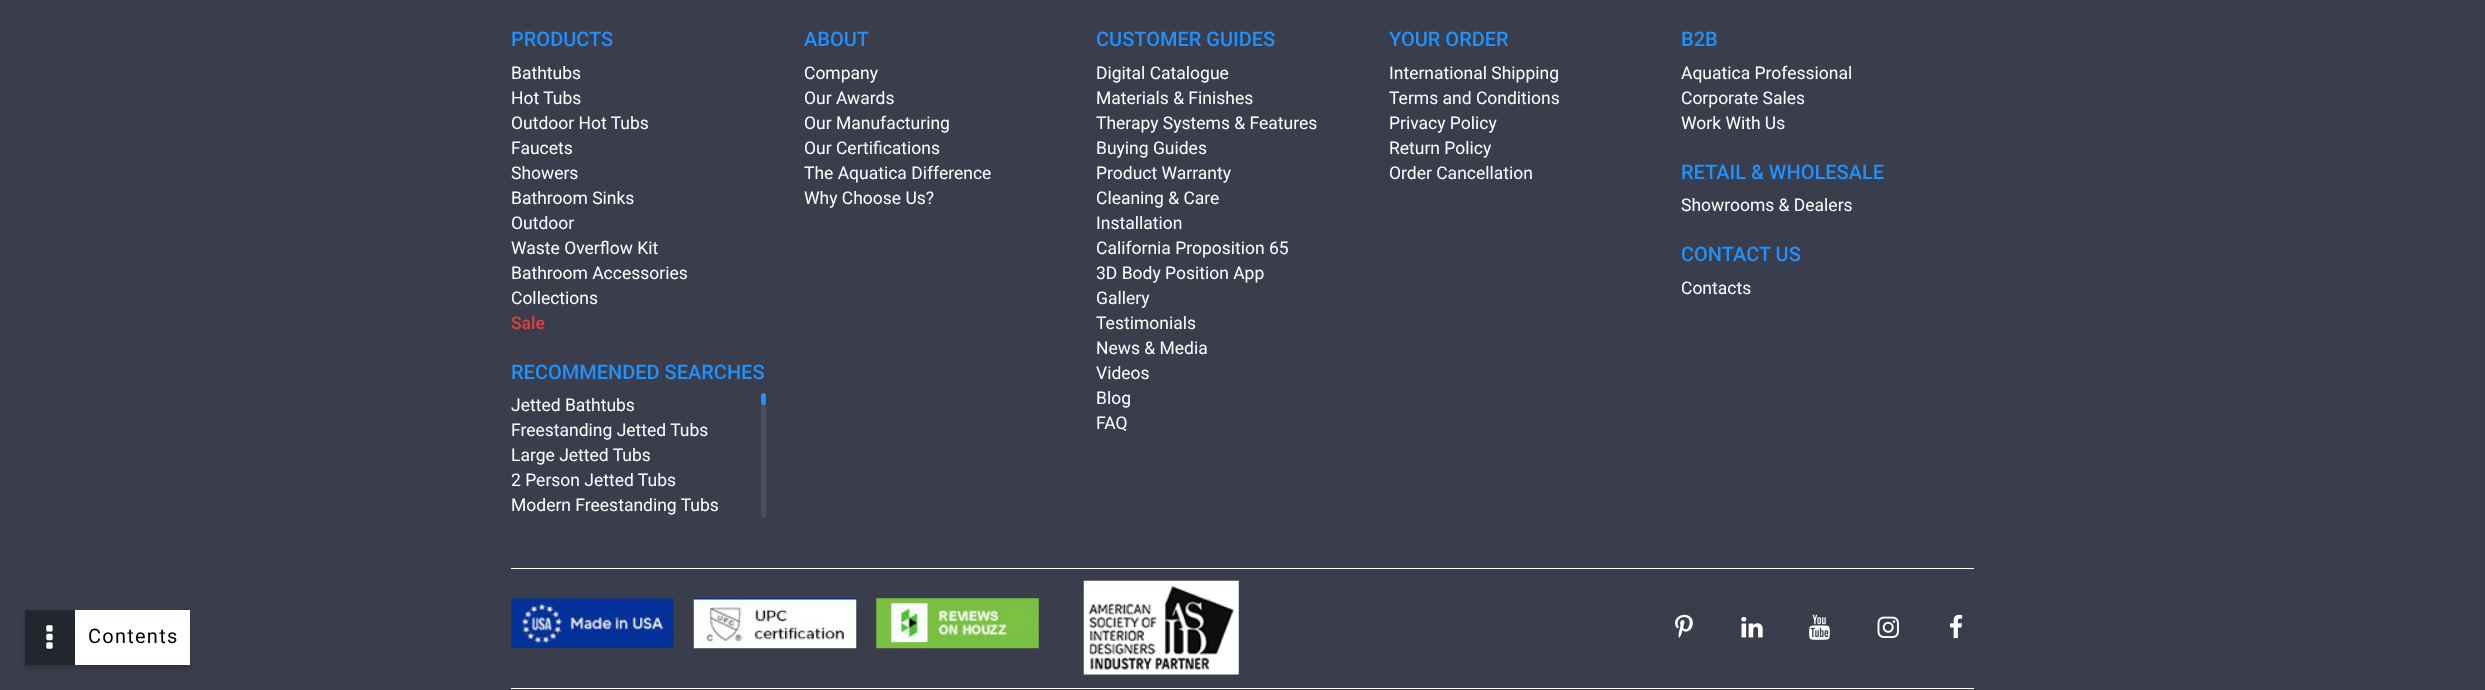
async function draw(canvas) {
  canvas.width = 2485
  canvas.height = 690
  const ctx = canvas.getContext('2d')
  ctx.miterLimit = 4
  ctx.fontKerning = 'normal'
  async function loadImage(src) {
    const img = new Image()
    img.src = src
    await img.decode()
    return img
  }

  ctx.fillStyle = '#3a3d4c'
  ctx.fillRect(0, 0, 2485, 690)
  ctx.font = '500 20px Roboto'
  ctx.fillStyle = '#2191fb'
  ctx.fillText('PRODUCTS', 511, 46)
  ctx.font = '17.5px Roboto'
  ctx.fillStyle = '#fff'
  ctx.fillText('Bathtubs', 511, 79)
  ctx.fillText('Hot Tubs', 511, 104)
  ctx.fillText('Outdoor Hot Tubs', 511, 129)
  ctx.fillText('Faucets', 511, 154)
  ctx.fillText('Showers', 511, 179)
  ctx.fillText('Bathroom Sinks', 511, 204)
  ctx.fillText('Outdoor', 511, 229)
  ctx.fillText('Waste Overflow Kit', 511, 254)
  ctx.fillText('Bathroom Accessories', 511, 279)
  ctx.fillText('Collections', 511, 304)
  ctx.font = '500 17.5px Roboto'
  ctx.fillStyle = '#de413e'
  ctx.fillText('Sale', 511, 329)
  ctx.font = '500 20px Roboto'
  ctx.fillStyle = '#2191fb'
  ctx.fillText('RECOMMENDED SEARCHES', 511, 379)
  ctx.fillStyle = '#494f62'
  ctx.beginPath()
  ctx.roundRect(761, 393, 5, 125, 2.5)
  ctx.fill()
  ctx.font = '17.5px Roboto'
  ctx.fillStyle = '#fff'
  ctx.fillText('Jetted Bathtubs', 511, 411)
  ctx.fillText('Freestanding Jetted Tubs', 511, 436)
  ctx.fillText('Large Jetted Tubs', 511, 461)
  ctx.fillText('2 Person Jetted Tubs', 511, 486)
  ctx.fillText('Modern Freestanding Tubs', 511, 511)
  ctx.fillStyle = '#2191fb'
  ctx.beginPath()
  ctx.roundRect(761, 393, 5, 12, 2.5)
  ctx.fill()
  ctx.font = '500 20px Roboto'
  ctx.fillText('ABOUT', 804, 46)
  ctx.font = '17.5px Roboto'
  ctx.fillStyle = '#fff'
  ctx.fillText('Company', 804, 79)
  ctx.fillText('Our Awards', 804, 104)
  ctx.fillText('Our Manufacturing', 804, 129)
  ctx.fillText('Our Certifications', 804, 154)
  ctx.fillText('The Aquatica Difference', 804, 179)
  ctx.fillText('Why Choose Us?', 804, 204)
  ctx.font = '500 20px Roboto'
  ctx.fillStyle = '#2191fb'
  ctx.fillText('CUSTOMER GUIDES', 1096, 46)
  ctx.font = '17.5px Roboto'
  ctx.fillStyle = '#fff'
  ctx.fillText('Digital Catalogue', 1096, 79)
  ctx.fillText('Materials & Finishes', 1096, 104)
  ctx.fillText('Therapy Systems & Features', 1096, 129)
  ctx.fillText('Buying Guides', 1096, 154)
  ctx.fillText('Product Warranty', 1096, 179)
  ctx.fillText('Cleaning & Care', 1096, 204)
  ctx.fillText('Installation', 1096, 229)
  ctx.fillText('California Proposition 65', 1096, 254)
  ctx.fillText('3D Body Position App', 1096, 279)
  ctx.fillText('Gallery', 1096, 304)
  ctx.fillText('Testimonials', 1096, 329)
  ctx.fillText('News & Media', 1096, 354)
  ctx.fillText('Videos', 1096, 379)
  ctx.fillText('Blog', 1096, 404)
  ctx.fillText('FAQ', 1096, 429)
  ctx.font = '500 20px Roboto'
  ctx.fillStyle = '#2191fb'
  ctx.fillText('YOUR ORDER', 1389, 46)
  ctx.font = '17.5px Roboto'
  ctx.fillStyle = '#fff'
  ctx.fillText('International Shipping', 1389, 79)
  ctx.fillText('Terms and Conditions', 1389, 104)
  ctx.fillText('Privacy Policy', 1389, 129)
  ctx.fillText('Return Policy', 1389, 154)
  ctx.fillText('Order Cancellation', 1389, 179)
  ctx.font = '500 20px Roboto'
  ctx.fillStyle = '#2191fb'
  ctx.fillText('B2B', 1681, 46)
  ctx.font = '17.5px Roboto'
  ctx.fillStyle = '#fff'
  ctx.fillText('Aquatica Professional', 1681, 79)
  ctx.fillText('Corporate Sales', 1681, 104)
  ctx.fillText('Work With Us', 1681, 129)
  ctx.font = '500 20px Roboto'
  ctx.fillStyle = '#2191fb'
  ctx.fillText('RETAIL & WHOLESALE', 1681, 179)
  ctx.font = '17.5px Roboto'
  ctx.fillStyle = '#fff'
  ctx.fillText('Showrooms & Dealers', 1681, 211)
  ctx.font = '500 20px Roboto'
  ctx.fillStyle = '#2191fb'
  ctx.fillText('CONTACT US', 1681, 261)
  ctx.font = '17.5px Roboto'
  ctx.fillStyle = '#fff'
  ctx.fillText('Contacts', 1681, 294)
  ctx.fillRect(511, 568, 1463, 1)
  ctx.drawImage(await loadImage('image0.png'), 511, 598, 163, 51)
  ctx.drawImage(await loadImage('image1.png'), 693, 598, 164, 51)
  ctx.drawImage(await loadImage('image2.png'), 876, 598, 163, 51)
  ctx.drawImage(await loadImage('image3.png'), 1083, 580, 156, 95)
  ctx.drawImage(await loadImage('image4.png'), 1675, 614, 18, 24)
  ctx.drawImage(await loadImage('image5.png'), 1741, 616, 22, 22)
  ctx.drawImage(await loadImage('image6.png'), 1809, 614, 21, 26)
  ctx.drawImage(await loadImage('image7.png'), 1877, 616, 22, 22)
  ctx.drawImage(await loadImage('image8.png'), 1950, 614, 13, 25)
  ctx.fillRect(511, 688, 1463, 1)
  ctx.fillStyle = '#00000033'
  ctx.filter = 'blur(2.5px)'
  ctx.beginPath()
  ctx.rect(25, 613, 165, 55)
  ctx.fill()
  ctx.filter = 'none'
  ctx.fillStyle = '#24262f'
  ctx.fillRect(25, 610, 50, 55)
  ctx.drawImage(await loadImage('image9.png'), 46, 625, 7, 24)
  ctx.fillStyle = '#fff'
  ctx.fillRect(75, 610, 115, 55)
  ctx.letterSpacing = '1.25px'
  ctx.font = '20px Roboto'
  ctx.fillStyle = '#000'
  ctx.fillText('Contents', 88, 643)
}

draw(document.querySelector('canvas'))
